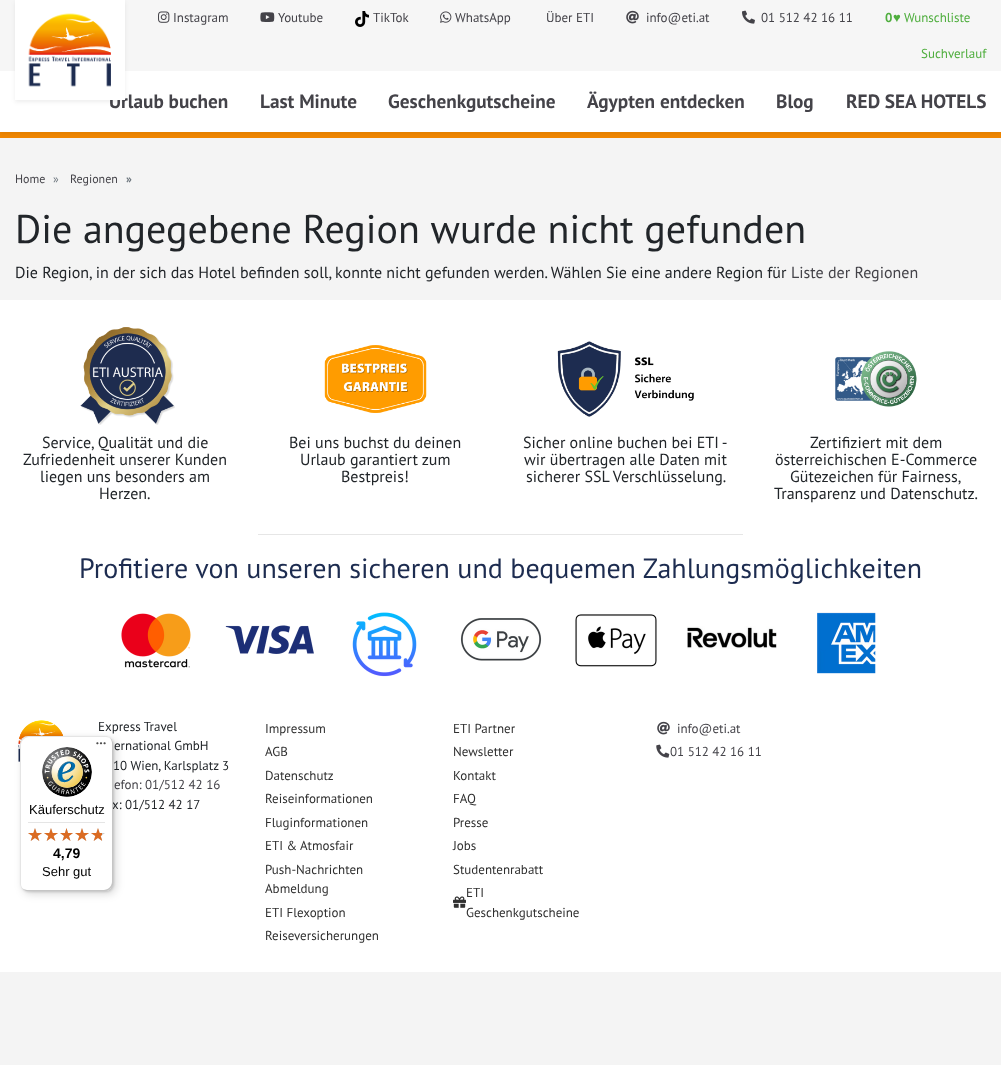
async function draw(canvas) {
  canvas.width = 1001
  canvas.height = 1065
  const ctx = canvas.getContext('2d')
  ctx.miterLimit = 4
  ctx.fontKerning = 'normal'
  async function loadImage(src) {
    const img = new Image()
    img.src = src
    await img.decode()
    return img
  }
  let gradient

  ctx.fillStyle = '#f4f4f4'
  ctx.fillRect(0, 0, 1001, 1065)
  gradient = ctx.createLinearGradient(501, 90, 501, 138)
  gradient.addColorStop(0, '#f4ae2b')
  gradient.addColorStop(0.88, '#f18700')
  ctx.fillStyle = gradient
  ctx.fillRect(0, 132, 1001, 6)
  ctx.fillStyle = '#00000012'
  ctx.filter = 'blur(2px)'
  ctx.beginPath()
  ctx.rect(0, 2, 1001, 132)
  ctx.fill()
  ctx.filter = 'none'
  ctx.fillStyle = '#f6f6f6'
  ctx.fillRect(0, 0, 1001, 71)
  ctx.drawImage(await loadImage('image0.png'), 158, 11, 12, 12)
  ctx.font = '13px PT Sans'
  ctx.fillStyle = '#444349'
  ctx.fillText('Instagram', 173, 22)
  ctx.drawImage(await loadImage('image1.png'), 260, 12, 15, 10)
  ctx.fillText('Youtube', 278, 22)
  ctx.drawImage(await loadImage('image2.png'), 355, 11, 14, 16)
  ctx.fillText('TikTok', 373, 22)
  ctx.drawImage(await loadImage('image3.png'), 440, 11, 12, 12)
  ctx.fillText('WhatsApp', 455, 22)
  ctx.fillText('Über ETI', 546, 22)
  ctx.drawImage(await loadImage('image4.png'), 626, 10, 13, 14)
  ctx.fillText('info@eti.at', 646, 22)
  ctx.drawImage(await loadImage('image5.png'), 742, 10, 13, 14)
  ctx.fillText('01 512 42 16 11', 761, 22)
  ctx.font = 'bold 13px PT Sans'
  ctx.fillStyle = '#4fae3e'
  ctx.fillText('0', 885, 22)
  ctx.font = '13px Liberation Sans'
  ctx.fillText('♥', 893, 22)
  ctx.font = '13px PT Sans'
  ctx.fillText('Wunschliste', 904, 22)
  ctx.fillText('Suchverlauf', 921, 58)
  ctx.fillStyle = '#fff'
  ctx.fillRect(0, 71, 1001, 61)
  ctx.fillStyle = '#00000012'
  ctx.filter = 'blur(2px)'
  ctx.beginPath()
  ctx.rect(15, 2, 110, 100)
  ctx.fill()
  ctx.filter = 'none'
  ctx.font = 'bold 19.25px PT Sans'
  ctx.fillStyle = '#444349'
  ctx.fillText('Urlaub buchen', 109, 108)
  ctx.fillStyle = '#fff'
  ctx.fillRect(15, 0, 110, 100)
  ctx.drawImage(await loadImage('image6.png'), 28, 13, 83, 74)
  ctx.fillStyle = '#444349'
  ctx.fillText('Last Minute', 260, 108)
  ctx.fillText('Geschenkgutscheine', 388, 108)
  ctx.fillText('Ägypten entdecken', 587, 108)
  ctx.fillText('Blog', 776, 108)
  ctx.fillText('RED SEA HOTELS', 846, 108)
  ctx.font = '12px PT Sans'
  ctx.fillText('Home', 15, 183)
  ctx.fillStyle = '#6c757d'
  ctx.fillText('»', 53, 183)
  ctx.fillStyle = '#444349'
  ctx.fillText('Regionen', 70, 183)
  ctx.font = 'bold 12px PT Sans'
  ctx.fillStyle = '#6c757d'
  ctx.fillText('»', 126, 183)
  ctx.font = '40px PT Sans'
  ctx.fillStyle = '#212529'
  ctx.fillText('Die angegebene Region wurde nicht gefunden', 15, 243)
  ctx.font = '16px PT Sans'
  ctx.fillText('Die Region, in der sich das Hotel befinden soll, konnte nicht gefunden werden. Wählen Sie eine andere Region für', 15, 278)
  ctx.fillStyle = '#444349'
  ctx.fillText('Liste der Regionen', 791, 278)
  ctx.fillStyle = '#fff'
  ctx.fillRect(0, 300, 1001, 672)
  ctx.drawImage(await loadImage('image7.png'), 80, 327, 95, 98)
  ctx.fillStyle = '#212529'
  ctx.fillText('Service, Qualität und die', 42, 448)
  ctx.fillText('Zufriedenheit unserer Kunden', 23, 465)
  ctx.fillText('liegen uns besonders am', 40, 482)
  ctx.fillText('Herzen.', 99, 499)
  ctx.drawImage(await loadImage('image8.png'), 324, 345, 103, 68)
  ctx.fillText('Bei uns buchst du deinen', 289, 448)
  ctx.fillText('Urlaub garantiert zum', 300, 465)
  ctx.fillText('Bestpreis!', 341, 482)
  ctx.drawImage(await loadImage('image9.png'), 557, 341, 137, 76)
  ctx.fillText('Sicher online buchen bei ETI -', 523, 448)
  ctx.fillText('wir übertragen alle Daten mit', 524, 465)
  ctx.fillText('sicherer SSL Verschlüsselung.', 526, 482)
  ctx.drawImage(await loadImage('image10.png'), 835, 351, 82, 56)
  ctx.fillText('Zertifiziert mit dem', 810, 448)
  ctx.fillText('österreichischen E-Commerce', 775, 465)
  ctx.fillText('Gütezeichen für Fairness,', 790, 482)
  ctx.fillText('Transparenz und Datenschutz.', 774, 499)
  ctx.fillStyle = '#e6e6e6'
  ctx.fillRect(258, 534, 485, 1)
  ctx.font = '28px PT Sans'
  ctx.fillStyle = '#1d2c50'
  ctx.fillText('Profitiere von unseren sicheren und bequemen Zahlungsmöglichkeiten', 79, 578)
  ctx.drawImage(await loadImage('image11.png'), 121, 613, 70, 55)
  ctx.drawImage(await loadImage('image12.png'), 225, 625, 89, 29)
  ctx.drawImage(await loadImage('image13.png'), 352, 612, 65, 65)
  ctx.drawImage(await loadImage('image14.png'), 460, 618, 82, 43)
  ctx.drawImage(await loadImage('image15.png'), 575, 614, 82, 53)
  ctx.drawImage(await loadImage('image16.png'), 687, 626, 90, 23)
  ctx.drawImage(await loadImage('image17.png'), 817, 612, 59, 62)
  ctx.drawImage(await loadImage('image18.png'), 18, 720, 45, 42)
  ctx.font = '13px PT Sans'
  ctx.fillStyle = '#212529'
  ctx.fillText('Express Travel', 98, 731)
  ctx.fillText('ernational GmbH', 114, 750)
  ctx.fillText('10 Wien, Karlsplatz 3', 113, 770)
  ctx.fillStyle = '#444349'
  ctx.fillText('efon: 01/512 42 16', 114, 789)
  ctx.fillStyle = '#212529'
  ctx.fillText('x: 01/512 42 17', 112, 809)
  ctx.fillStyle = '#303030'
  ctx.fillText('Impressum', 265, 733)
  ctx.fillText('AGB', 265, 756)
  ctx.fillText('Datenschutz', 265, 780)
  ctx.fillText('ETI Partner', 453, 733)
  ctx.fillText('Newsletter', 453, 756)
  ctx.fillText('Kontakt', 453, 780)
  ctx.fillText('Reiseinformationen', 265, 803)
  ctx.fillText('Fluginformationen', 265, 827)
  ctx.fillText('ETI & Atmosfair', 265, 850)
  ctx.fillText('FAQ', 453, 803)
  ctx.fillText('Presse', 453, 827)
  ctx.fillText('Jobs', 453, 850)
  ctx.fillText('Push-Nachrichten', 265, 874)
  ctx.fillText('Abmeldung', 265, 893)
  ctx.fillText('ETI Flexoption', 265, 917)
  ctx.fillText('Reiseversicherungen', 265, 940)
  ctx.fillText('Studentenrabatt', 453, 874)
  ctx.fillText('ETI', 466, 897)
  ctx.drawImage(await loadImage('image19.png'), 453, 896, 13, 12)
  ctx.fillText('Geschenkgutscheine', 466, 917)
  ctx.drawImage(await loadImage('image20.png'), 657, 721, 13, 14)
  ctx.fillStyle = '#444349'
  ctx.fillText('info@eti.at', 677, 733)
  ctx.drawImage(await loadImage('image21.png'), 656, 744, 14, 14)
  ctx.fillText('01 512 42 16 11', 670, 756)
  ctx.fillStyle = '#00000026'
  ctx.filter = 'blur(4px)'
  ctx.beginPath()
  ctx.roundRect(23, 739, 93, 155, 8)
  ctx.fill()
  ctx.filter = 'none'
  ctx.filter = 'blur(1px)'
  ctx.beginPath()
  ctx.roundRect(21, 737, 93, 155, 8)
  ctx.fill()
  ctx.filter = 'none'
  ctx.fillStyle = '#fff'
  ctx.beginPath()
  ctx.roundRect(20, 736, 93, 155, 8)
  ctx.fill()
  ctx.fillStyle = '#0000001a'
  ctx.beginPath()
  ctx.moveTo(29, 737)
  ctx.lineTo(106, 737)
  ctx.bezierCurveTo(108, 737, 110, 738, 112, 740)
  ctx.bezierCurveTo(110, 738, 108, 736, 105, 736)
  ctx.lineTo(28, 736)
  ctx.bezierCurveTo(24, 736, 20, 740, 20, 744)
  ctx.lineTo(20, 883)
  ctx.bezierCurveTo(20, 886, 22, 888, 24, 890)
  ctx.bezierCurveTo(22, 888, 21, 886, 21, 884)
  ctx.lineTo(21, 745)
  ctx.bezierCurveTo(21, 741, 25, 737, 29, 737)
  ctx.closePath()
  ctx.fill()
  ctx.fillStyle = '#00000033'
  ctx.beginPath()
  ctx.moveTo(21, 887)
  ctx.bezierCurveTo(23, 889, 25, 891, 28, 891)
  ctx.lineTo(105, 891)
  ctx.bezierCurveTo(109, 891, 113, 887, 113, 883)
  ctx.lineTo(113, 744)
  ctx.bezierCurveTo(113, 741, 111, 739, 109, 737)
  ctx.bezierCurveTo(111, 739, 112, 741, 112, 743)
  ctx.lineTo(112, 882)
  ctx.bezierCurveTo(112, 886, 108, 890, 104, 890)
  ctx.lineTo(27, 890)
  ctx.bezierCurveTo(25, 890, 23, 889, 21, 887)
  ctx.closePath()
  ctx.fill()
  ctx.fillStyle = '#32323233'
  ctx.beginPath()
  ctx.moveTo(22, 888)
  ctx.bezierCurveTo(23, 890, 26, 891, 28, 891)
  ctx.lineTo(105, 891)
  ctx.bezierCurveTo(109, 891, 113, 887, 113, 883)
  ctx.lineTo(113, 744)
  ctx.bezierCurveTo(113, 742, 112, 739, 110, 738)
  ctx.bezierCurveTo(111, 739, 112, 741, 112, 743)
  ctx.lineTo(112, 882)
  ctx.bezierCurveTo(112, 887, 109, 890, 104, 890)
  ctx.lineTo(27, 890)
  ctx.bezierCurveTo(25, 890, 23, 889, 22, 888)
  ctx.closePath()
  ctx.fill()
  ctx.fillStyle = '#ffffff4d'
  ctx.beginPath()
  ctx.moveTo(112, 744)
  ctx.bezierCurveTo(112, 739, 109, 736, 104, 736)
  ctx.lineTo(105, 736)
  ctx.bezierCurveTo(109, 736, 113, 740, 113, 744)
  ctx.lineTo(113, 883)
  ctx.bezierCurveTo(113, 887, 109, 891, 105, 891)
  ctx.lineTo(28, 891)
  ctx.bezierCurveTo(24, 891, 20, 887, 20, 883)
  ctx.lineTo(20, 882)
  ctx.bezierCurveTo(20, 887, 23, 890, 28, 890)
  ctx.lineTo(104, 890)
  ctx.bezierCurveTo(109, 890, 112, 887, 112, 882)
  ctx.closePath()
  ctx.fill()
  ctx.drawImage(await loadImage('image22.png'), 96, 742, 10, 3)
  ctx.drawImage(await loadImage('image23.png'), 42, 747, 50, 50)
  ctx.font = '13px Liberation Sans'
  ctx.fillStyle = '#000'
  ctx.fillText('Käuferschutz', 29, 814)
  ctx.fillStyle = '#e5e5e5'
  ctx.fillRect(28, 822, 77, 1)
  ctx.drawImage(await loadImage('image24.png'), 28, 828, 14, 13)
  ctx.drawImage(await loadImage('image24.png'), 44, 828, 14, 13)
  ctx.drawImage(await loadImage('image25.png'), 60, 828, 13, 13)
  ctx.drawImage(await loadImage('image24.png'), 75, 828, 14, 13)
  ctx.drawImage(await loadImage('image24.png'), 91, 828, 14, 13)
  ctx.drawImage(await loadImage('image26.png'), 28, 828, 14, 13)
  ctx.drawImage(await loadImage('image26.png'), 44, 828, 14, 13)
  ctx.drawImage(await loadImage('image27.png'), 60, 828, 13, 13)
  ctx.drawImage(await loadImage('image26.png'), 75, 828, 14, 13)
  ctx.drawImage(await loadImage('image28.png'), 91, 828, 11, 13)
  ctx.font = 'bold 14px Liberation Sans'
  ctx.fillStyle = '#000'
  ctx.fillText('4,79', 53, 858)
  ctx.font = '13px Liberation Sans'
  ctx.fillText('Sehr gut', 42, 876)
}

draw(document.querySelector('canvas'))
